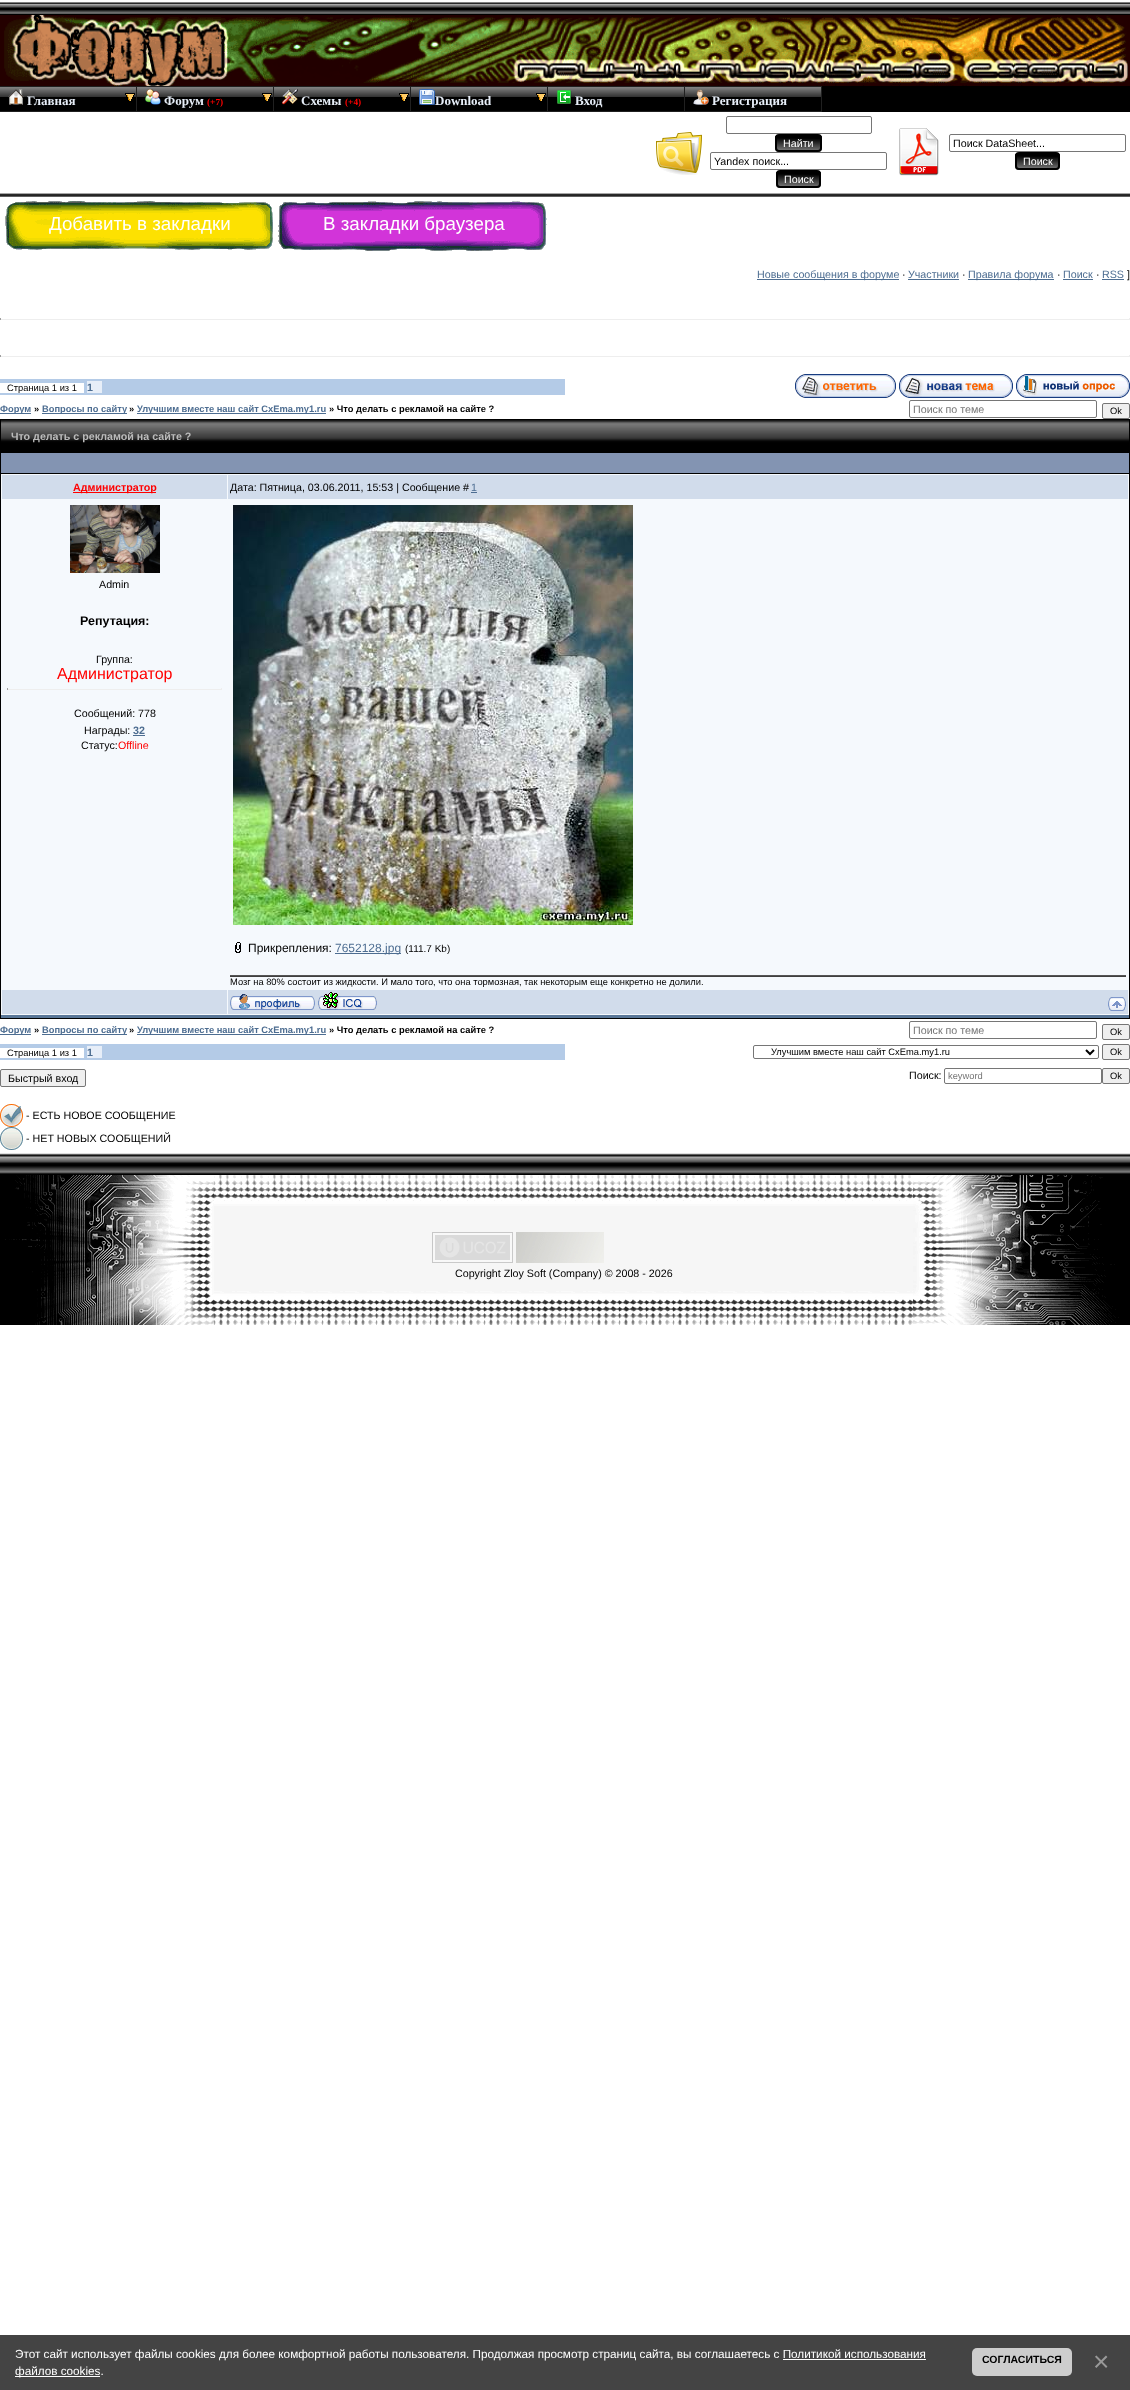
async function draw(canvas) {
  canvas.width = 1130
  canvas.height = 2390
  const ctx = canvas.getContext('2d')
  ctx.miterLimit = 4
  ctx.fontKerning = 'normal'
  async function loadImage(src) {
    const img = new Image()
    img.src = src
    await img.decode()
    return img
  }

  ctx.fillStyle = '#fff'
  ctx.fillRect(0, 0, 1130, 2390)
  ctx.drawImage(await loadImage('image0.png'), 0, 2, 1130, 13)
  ctx.drawImage(await loadImage('image1.png'), 0, 15, 1130, 71)
  ctx.fillStyle = '#000'
  ctx.fillRect(0, 86, 1130, 26)
  ctx.drawImage(await loadImage('image2.png'), 0, 87, 136, 10)
  ctx.fillStyle = '#202020'
  ctx.fillRect(0, 86, 822, 1)
  ctx.fillRect(136, 86, 1, 26)
  ctx.fillRect(0, 111, 137, 1)
  ctx.drawImage(await loadImage('image3.png'), 8, 89, 16, 16)
  ctx.font = 'bold 13px Liberation Serif'
  ctx.fillStyle = '#e7eef8'
  ctx.fillText('Главная', 27, 105)
  ctx.drawImage(await loadImage('image4.png'), 125, 93, 10, 8)
  ctx.drawImage(await loadImage('image2.png'), 137, 87, 136, 10)
  ctx.fillStyle = '#202020'
  ctx.fillRect(273, 86, 1, 26)
  ctx.fillRect(137, 111, 137, 1)
  ctx.drawImage(await loadImage('image5.png'), 145, 89, 16, 16)
  ctx.fillStyle = '#e7eef8'
  ctx.fillText('Форум', 164, 105)
  ctx.font = 'bold 9.33px Liberation Serif'
  ctx.fillStyle = '#f00'
  ctx.fillText('(+7)', 207, 105)
  ctx.drawImage(await loadImage('image4.png'), 262, 93, 10, 8)
  ctx.drawImage(await loadImage('image2.png'), 274, 87, 136, 10)
  ctx.fillStyle = '#202020'
  ctx.fillRect(410, 86, 1, 26)
  ctx.fillRect(274, 111, 137, 1)
  ctx.drawImage(await loadImage('image6.png'), 282, 89, 16, 16)
  ctx.font = 'bold 13px Liberation Serif'
  ctx.fillStyle = '#e7eef8'
  ctx.fillText('Схемы', 301, 105)
  ctx.font = 'bold 9.33px Liberation Serif'
  ctx.fillStyle = '#f00'
  ctx.fillText('(+4)', 345, 105)
  ctx.drawImage(await loadImage('image4.png'), 399, 93, 10, 8)
  ctx.drawImage(await loadImage('image2.png'), 411, 87, 136, 10)
  ctx.fillStyle = '#202020'
  ctx.fillRect(547, 86, 1, 26)
  ctx.fillRect(411, 111, 137, 1)
  ctx.drawImage(await loadImage('image7.png'), 419, 89, 16, 16)
  ctx.font = 'bold 13px Liberation Serif'
  ctx.fillStyle = '#e7eef8'
  ctx.fillText('Download', 435, 105)
  ctx.drawImage(await loadImage('image4.png'), 536, 93, 10, 8)
  ctx.drawImage(await loadImage('image2.png'), 548, 87, 136, 10)
  ctx.fillStyle = '#202020'
  ctx.fillRect(684, 86, 1, 26)
  ctx.fillRect(548, 111, 137, 1)
  ctx.drawImage(await loadImage('image8.png'), 557, 90, 15, 14)
  ctx.fillStyle = '#e7eef8'
  ctx.fillText('Вход', 575, 105)
  ctx.drawImage(await loadImage('image2.png'), 685, 87, 136, 10)
  ctx.fillStyle = '#202020'
  ctx.fillRect(821, 86, 1, 26)
  ctx.fillRect(685, 111, 137, 1)
  ctx.drawImage(await loadImage('image9.png'), 693, 89, 16, 16)
  ctx.fillStyle = '#e7eef8'
  ctx.fillText('Регистрация', 712, 105)
  ctx.drawImage(await loadImage('image10.png'), 656, 132, 46, 43)
  ctx.beginPath()
  ctx.roundRect(726.5, 116.5, 145, 17, 1.5)
  ctx.strokeStyle = '#767676'
  ctx.stroke()
  ctx.drawImage(await loadImage('image11.png'), 775, 136, 47, 16)
  ctx.beginPath()
  ctx.roundRect(776, 135, 45, 16, 3)
  ctx.strokeStyle = '#000'
  ctx.lineWidth = 2
  ctx.stroke()
  ctx.font = '10.7px Liberation Sans'
  ctx.fillStyle = '#fff'
  ctx.fillText('Найти', 783, 147)
  ctx.beginPath()
  ctx.roundRect(710.5, 152.5, 176, 17, 1.5)
  ctx.strokeStyle = '#767676'
  ctx.lineWidth = 1
  ctx.stroke()
  ctx.fillStyle = '#000'
  ctx.fillText('Yandex поиск...', 714, 165)
  ctx.drawImage(await loadImage('image12.png'), 776, 172, 45, 16)
  ctx.beginPath()
  ctx.roundRect(777, 171, 43, 16, 3)
  ctx.strokeStyle = '#000'
  ctx.lineWidth = 2
  ctx.stroke()
  ctx.fillStyle = '#fff'
  ctx.fillText('Поиск', 784, 183)
  ctx.drawImage(await loadImage('image13.png'), 899, 128, 40, 48)
  ctx.beginPath()
  ctx.roundRect(949.5, 134.5, 176, 17, 1.5)
  ctx.strokeStyle = '#767676'
  ctx.lineWidth = 1
  ctx.stroke()
  ctx.fillStyle = '#000'
  ctx.fillText('Поиск DataSheet...', 953, 147)
  ctx.drawImage(await loadImage('image14.png'), 1015, 154, 45, 16)
  ctx.beginPath()
  ctx.roundRect(1016, 153, 43, 16, 3)
  ctx.strokeStyle = '#000'
  ctx.lineWidth = 2
  ctx.stroke()
  ctx.fillStyle = '#fff'
  ctx.fillText('Поиск', 1023, 165)
  ctx.drawImage(await loadImage('image15.png'), 0, 193, 1130, 4)
  ctx.drawImage(await loadImage('image16.png'), 5, 201, 268, 49)
  ctx.font = '18.75px Liberation Sans'
  ctx.fillText('Добавить в закладки', 49, 230)
  ctx.drawImage(await loadImage('image17.png'), 278, 201, 269, 50)
  ctx.fillText('В закладки браузера', 323, 230)
  ctx.fillStyle = '#4d6d91'
  ctx.fillRect(757, 279, 142, 1)
  ctx.font = '10.7px Liberation Sans'
  ctx.fillText('Новые сообщения в форуме', 757, 278)
  ctx.fillStyle = '#000'
  ctx.fillText('·', 902, 278)
  ctx.fillStyle = '#4d6d91'
  ctx.fillText('Участники', 908, 278)
  ctx.fillRect(908, 279, 51, 1)
  ctx.fillStyle = '#000'
  ctx.fillText('·', 962, 278)
  ctx.fillStyle = '#4d6d91'
  ctx.fillRect(968, 279, 86, 1)
  ctx.fillText('Правила форума', 968, 278)
  ctx.fillStyle = '#000'
  ctx.fillText('·', 1057, 278)
  ctx.fillStyle = '#4d6d91'
  ctx.fillText('Поиск', 1063, 278)
  ctx.fillRect(1063, 279, 30, 1)
  ctx.fillStyle = '#000'
  ctx.fillText('·', 1096, 278)
  ctx.fillStyle = '#4d6d91'
  ctx.fillText('RSS', 1102, 278)
  ctx.fillRect(1102, 279, 22, 1)
  ctx.fillStyle = '#000'
  ctx.fillText(']', 1127, 278)
  ctx.fillStyle = '#eee'
  ctx.fillRect(1129, 318, 1, 2)
  ctx.fillRect(0, 319, 1130, 1)
  ctx.fillStyle = '#9f9f9f'
  ctx.fillRect(0, 318, 1, 2)
  ctx.fillStyle = '#eee'
  ctx.fillRect(1129, 355, 1, 2)
  ctx.fillRect(0, 356, 1130, 1)
  ctx.fillStyle = '#9f9f9f'
  ctx.fillRect(0, 355, 1, 2)
  ctx.fillStyle = '#b4cbe7'
  ctx.fillRect(0, 379, 565, 16)
  ctx.fillStyle = '#fff'
  ctx.fillRect(0, 383, 84, 10)
  ctx.font = '9.33px Liberation Sans'
  ctx.fillStyle = '#000'
  ctx.fillText('Страница 1 из 1', 7, 391)
  ctx.fillStyle = '#e7eef8'
  ctx.fillRect(87, 381, 15, 12)
  ctx.font = 'bold 10.7px Liberation Sans'
  ctx.fillStyle = '#4d6d91'
  ctx.fillText('1', 87, 391)
  ctx.drawImage(await loadImage('image18.png'), 795, 374, 101, 24)
  ctx.drawImage(await loadImage('image19.png'), 899, 374, 114, 24)
  ctx.drawImage(await loadImage('image20.png'), 1016, 374, 114, 24)
  ctx.fillRect(0, 413, 31, 1)
  ctx.font = 'bold 9.33px Liberation Sans'
  ctx.fillText('Форум', 0, 412)
  ctx.fillStyle = '#000'
  ctx.fillText('»', 34, 412)
  ctx.fillStyle = '#4d6d91'
  ctx.fillRect(42, 413, 85, 1)
  ctx.fillText('Вопросы по сайту', 42, 412)
  ctx.fillStyle = '#000'
  ctx.fillText('»', 129, 412)
  ctx.fillStyle = '#4d6d91'
  ctx.fillRect(137, 413, 189, 1)
  ctx.fillText('Улучшим вместе наш сайт CxEma.my1.ru', 137, 412)
  ctx.fillStyle = '#000'
  ctx.fillText('» Что делать с рекламой на сайте ?', 329, 412)
  ctx.beginPath()
  ctx.roundRect(909.5, 400.5, 187, 17, 1.5)
  ctx.strokeStyle = '#767676'
  ctx.lineWidth = 1
  ctx.stroke()
  ctx.font = '10.7px Liberation Sans'
  ctx.fillStyle = '#757575'
  ctx.fillText('Поиск по теме', 913, 413)
  ctx.fillStyle = '#efefef'
  ctx.beginPath()
  ctx.roundRect(1102.5, 403.5, 27, 15, 1.5)
  ctx.fill()
  ctx.stroke()
  ctx.font = '9.33px Liberation Sans'
  ctx.fillStyle = '#000'
  ctx.fillText('Ok', 1110, 414)
  ctx.fillRect(0, 419, 1130, 600)
  ctx.drawImage(await loadImage('image21.png'), 1, 420, 1128, 32)
  ctx.font = 'bold 10.7px Liberation Sans'
  ctx.fillStyle = '#bbb'
  ctx.fillText('Что делать с рекламой на сайте ?', 11, 440)
  ctx.fillStyle = '#8394b2'
  ctx.fillRect(1, 453, 1128, 20)
  ctx.fillStyle = '#f5f9fd'
  ctx.fillRect(1, 474, 1128, 541)
  ctx.fillStyle = '#597798'
  ctx.fillRect(1, 1015, 1128, 3)
  ctx.fillStyle = '#d1dceb'
  ctx.fillRect(2, 475, 225, 24)
  ctx.fillStyle = '#f00'
  ctx.fillRect(73, 492, 83, 1)
  ctx.fillText('Администратор', 73, 491)
  ctx.fillStyle = '#d1dceb'
  ctx.fillRect(228, 475, 900, 24)
  ctx.font = '10.7px Liberation Sans'
  ctx.fillStyle = '#000'
  ctx.fillText('Дата: Пятница, 03.06.2011, 15:53 | Сообщение #', 230, 491)
  ctx.fillStyle = '#4d6d91'
  ctx.fillText('1', 471, 491)
  ctx.fillRect(471, 492, 6, 1)
  ctx.drawImage(await loadImage('image22.png'), 70, 505, 90, 68)
  ctx.fillStyle = '#000'
  ctx.fillText('Admin', 99, 588)
  ctx.font = 'bold 12.5px Liberation Sans'
  ctx.fillText('Репутация:', 80, 625)
  ctx.font = '10.7px Liberation Sans'
  ctx.fillText('Группа:', 96, 663)
  ctx.font = '16px Liberation Sans'
  ctx.fillStyle = '#f00'
  ctx.fillText('Администратор', 57, 679)
  ctx.fillStyle = '#eee'
  ctx.fillRect(221, 688, 1, 2)
  ctx.fillRect(7, 689, 215, 1)
  ctx.fillStyle = '#9f9f9f'
  ctx.fillRect(7, 688, 1, 2)
  ctx.font = '10.7px Liberation Sans'
  ctx.fillStyle = '#000'
  ctx.fillText('Сообщений: 778', 74, 717)
  ctx.fillText('Награды:', 84, 734)
  ctx.font = 'bold 10.7px Liberation Sans'
  ctx.fillStyle = '#4d6d91'
  ctx.fillText('32', 133, 734)
  ctx.fillRect(133, 735, 12, 1)
  ctx.font = '10.7px Liberation Sans'
  ctx.fillStyle = '#000'
  ctx.fillText('Статус:', 81, 749)
  ctx.fillStyle = '#f00'
  ctx.fillText('Offline', 118, 749)
  ctx.drawImage(await loadImage('image23.png'), 233, 505, 400, 420)
  ctx.drawImage(await loadImage('image24.png'), 235, 942, 6, 11)
  ctx.font = '12px Liberation Sans'
  ctx.fillStyle = '#000'
  ctx.fillText('Прикрепления:', 248, 952)
  ctx.fillStyle = '#4d6d91'
  ctx.fillRect(335, 953, 66, 1)
  ctx.fillText('7652128.jpg', 335, 952)
  ctx.font = '10px Liberation Sans'
  ctx.fillStyle = '#000'
  ctx.fillText('(111.7 Kb)', 405, 952)
  ctx.drawImage(await loadImage('image25.png'), 230, 975, 896, 2)
  ctx.font = '9.33px Liberation Sans'
  ctx.fillText('Мозг на 80% состоит из жидкости. И мало того, что она тормозная, так некоторым еще конкретно не долили.', 230, 985)
  ctx.fillStyle = '#d1dceb'
  ctx.fillRect(2, 990, 225, 24)
  ctx.fillRect(228, 990, 900, 24)
  ctx.drawImage(await loadImage('image26.png'), 230, 994, 85, 16)
  ctx.drawImage(await loadImage('image27.png'), 318, 992, 59, 18)
  ctx.drawImage(await loadImage('image28.png'), 1108, 997, 18, 14)
  ctx.fillStyle = '#4d6d91'
  ctx.fillRect(0, 1034, 31, 1)
  ctx.font = 'bold 9.33px Liberation Sans'
  ctx.fillText('Форум', 0, 1033)
  ctx.fillStyle = '#000'
  ctx.fillText('»', 34, 1033)
  ctx.fillStyle = '#4d6d91'
  ctx.fillRect(42, 1034, 85, 1)
  ctx.fillText('Вопросы по сайту', 42, 1033)
  ctx.fillStyle = '#000'
  ctx.fillText('»', 129, 1033)
  ctx.fillStyle = '#4d6d91'
  ctx.fillRect(137, 1034, 189, 1)
  ctx.fillText('Улучшим вместе наш сайт CxEma.my1.ru', 137, 1033)
  ctx.fillStyle = '#000'
  ctx.fillText('» Что делать с рекламой на сайте ?', 329, 1033)
  ctx.beginPath()
  ctx.roundRect(909.5, 1021.5, 187, 17, 1.5)
  ctx.stroke()
  ctx.font = '10.7px Liberation Sans'
  ctx.fillStyle = '#757575'
  ctx.fillText('Поиск по теме', 913, 1034)
  ctx.fillStyle = '#efefef'
  ctx.beginPath()
  ctx.roundRect(1102.5, 1024.5, 27, 15, 1.5)
  ctx.fill()
  ctx.stroke()
  ctx.font = '9.33px Liberation Sans'
  ctx.fillStyle = '#000'
  ctx.fillText('Ok', 1110, 1035)
  ctx.fillStyle = '#b4cbe7'
  ctx.fillRect(0, 1044, 565, 16)
  ctx.fillStyle = '#fff'
  ctx.fillRect(0, 1048, 84, 10)
  ctx.fillStyle = '#000'
  ctx.fillText('Страница 1 из 1', 7, 1056)
  ctx.fillStyle = '#e7eef8'
  ctx.fillRect(87, 1046, 15, 12)
  ctx.font = 'bold 10.7px Liberation Sans'
  ctx.fillStyle = '#4d6d91'
  ctx.fillText('1', 87, 1056)
  ctx.beginPath()
  ctx.roundRect(753.5, 1045.5, 345, 13, 1.5)
  ctx.stroke()
  ctx.beginPath()
  ctx.moveTo(1086, 1050)
  ctx.lineTo(1090, 1054)
  ctx.lineTo(1094, 1050)
  ctx.strokeStyle = '#000'
  ctx.lineWidth = 2
  ctx.stroke()
  ctx.font = '9.33px Liberation Sans'
  ctx.fillStyle = '#000'
  ctx.fillText('Улучшим вместе наш сайт CxEma.my1.ru', 771, 1055)
  ctx.fillStyle = '#efefef'
  ctx.beginPath()
  ctx.roundRect(1102.5, 1044.5, 27, 15, 1.5)
  ctx.fill()
  ctx.strokeStyle = '#767676'
  ctx.lineWidth = 1
  ctx.stroke()
  ctx.fillStyle = '#000'
  ctx.fillText('Ok', 1110, 1055)
  ctx.fillStyle = '#efefef'
  ctx.beginPath()
  ctx.roundRect(0.5, 1069.5, 85, 17, 1.5)
  ctx.fill()
  ctx.stroke()
  ctx.font = '10.7px Liberation Sans'
  ctx.fillStyle = '#000'
  ctx.fillText('Быстрый вход', 8, 1082)
  ctx.fillText('Поиск:', 909, 1079)
  ctx.beginPath()
  ctx.roundRect(944.5, 1068.5, 157, 15, 1.5)
  ctx.stroke()
  ctx.font = '9.33px Liberation Sans'
  ctx.fillStyle = '#757575'
  ctx.fillText('keyword', 948, 1079)
  ctx.fillStyle = '#efefef'
  ctx.beginPath()
  ctx.roundRect(1102.5, 1068.5, 27, 15, 1.5)
  ctx.fill()
  ctx.stroke()
  ctx.fillStyle = '#000'
  ctx.fillText('Ok', 1110, 1079)
  ctx.drawImage(await loadImage('image29.png'), 0, 1104, 23, 23)
  ctx.font = '10.7px Liberation Sans'
  ctx.fillText('- ЕСТЬ НОВОЕ СООБЩЕНИЕ', 26, 1119)
  ctx.drawImage(await loadImage('image30.png'), 0, 1127, 23, 23)
  ctx.fillText('- НЕТ НОВЫХ СООБЩЕНИЙ', 26, 1142)
  ctx.drawImage(await loadImage('image31.png'), 0, 1153, 1130, 22)
  ctx.fillRect(0, 1175, 5, 150)
  ctx.drawImage(await loadImage('image32.png'), 5, 1175, 209, 150)
  ctx.drawImage(await loadImage('image33.png'), 214, 1175, 699, 150)
  ctx.drawImage(await loadImage('image34.png'), 432, 1232, 81, 31)
  ctx.drawImage(await loadImage('image35.png'), 516, 1232, 88, 31)
  ctx.fillText('Copyright Zloy Soft (Company) © 2008 - 2026', 455, 1277)
  ctx.fillRect(1119, 1175, 11, 150)
  ctx.drawImage(await loadImage('image36.png'), 913, 1175, 206, 150)
  ctx.fillStyle = '#444'
  ctx.fillRect(0, 2335, 1130, 55)
  ctx.font = '11.73px Liberation Sans'
  ctx.fillStyle = '#fff'
  ctx.fillText('Этот сайт использует файлы cookies для более комфортной работы пользователя. Продолжая просмотр страниц сайта, вы соглашаетесь с Политикой использования', 15, 2358)
  ctx.fillRect(15, 2376, 85, 1)
  ctx.fillText('файлов cookies.', 15, 2375)
  ctx.fillRect(783, 2359, 143, 1)
  ctx.fillStyle = '#cdcdcd'
  ctx.beginPath()
  ctx.roundRect(972, 2348, 100, 28, 5)
  ctx.fill()
  ctx.font = 'bold 10.5px Liberation Sans'
  ctx.fillStyle = '#000'
  ctx.fillText('СОГЛАСИТЬСЯ', 982, 2363)
  ctx.font = '28px Liberation Sans'
  ctx.fillStyle = '#999'
  ctx.fillText('×', 1093, 2371)
}

draw(document.querySelector('canvas'))
